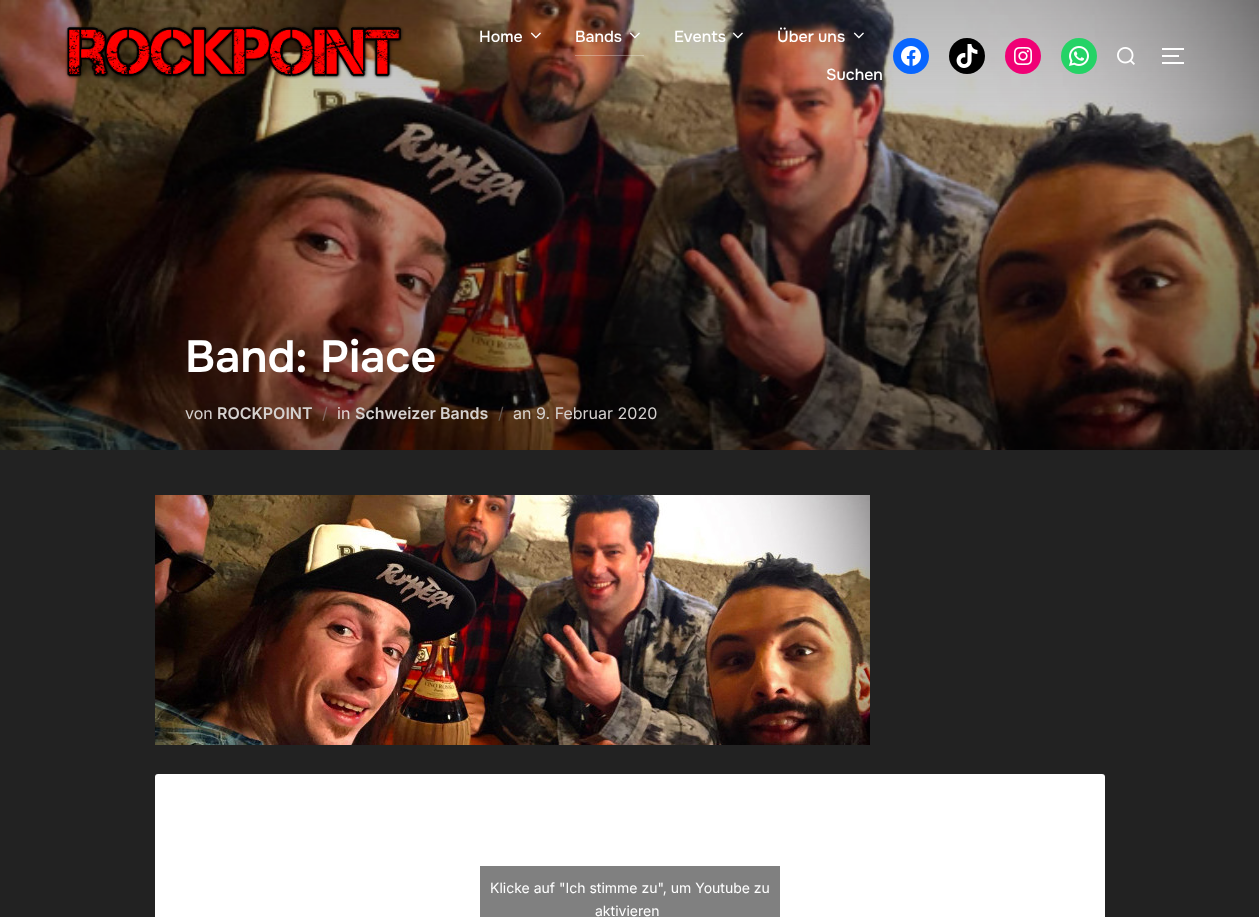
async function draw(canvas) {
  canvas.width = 1259
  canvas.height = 917
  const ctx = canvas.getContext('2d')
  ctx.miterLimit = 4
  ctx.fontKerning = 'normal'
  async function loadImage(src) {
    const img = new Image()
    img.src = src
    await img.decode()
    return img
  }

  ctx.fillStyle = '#222'
  ctx.fillRect(0, 0, 1259, 917)
  ctx.drawImage(await loadImage('image10.png'), 0, 0, 1259, 450)
  ctx.drawImage(await loadImage('image0.png'), 65, 25, 339, 54)
  ctx.font = '500 16px Onest'
  ctx.fillStyle = '#fff'
  ctx.fillText('Home', 479, 42)
  ctx.drawImage(await loadImage('image1.png'), 530, 32, 11, 7)
  ctx.fillStyle = '#ffffff4d'
  ctx.fillRect(575, 55, 69, 1)
  ctx.fillStyle = '#fff'
  ctx.fillText('Bands', 575, 42)
  ctx.drawImage(await loadImage('image2.png'), 629, 32, 11, 7)
  ctx.fillText('Events', 674, 42)
  ctx.drawImage(await loadImage('image3.png'), 732, 32, 11, 7)
  ctx.fillText('Über uns', 777, 42)
  ctx.drawImage(await loadImage('image4.png'), 853, 32, 11, 7)
  ctx.fillText('Suchen', 826, 80)
  ctx.fillStyle = '#0866ff'
  ctx.beginPath()
  ctx.arc(911, 56, 18, 0, 2 * Math.PI)
  ctx.fill()
  ctx.drawImage(await loadImage('image5.png'), 901, 46, 20, 20)
  ctx.fillStyle = '#000'
  ctx.beginPath()
  ctx.arc(967, 56, 18, 0, 2 * Math.PI)
  ctx.fill()
  ctx.drawImage(await loadImage('image6.png'), 956, 44, 22, 24)
  ctx.fillStyle = '#f00075'
  ctx.beginPath()
  ctx.arc(1023, 56, 18, 0, 2 * Math.PI)
  ctx.fill()
  ctx.drawImage(await loadImage('image7.png'), 1014, 47, 18, 18)
  ctx.fillStyle = '#25d366'
  ctx.beginPath()
  ctx.arc(1079, 56, 18, 0, 2 * Math.PI)
  ctx.fill()
  ctx.drawImage(await loadImage('image8.png'), 1069, 46, 20, 20)
  ctx.drawImage(await loadImage('image9.png'), 1117, 47, 18, 18)
  ctx.fillStyle = '#fff'
  ctx.fillRect(1162, 48, 22, 2)
  ctx.fillRect(1162, 55, 17, 2)
  ctx.fillRect(1162, 62, 22, 2)
  ctx.font = '600 45px Onest'
  ctx.fillText('Band: Piace', 185, 372)
  ctx.font = '16px Inter'
  ctx.fillStyle = '#d5d1cf'
  ctx.fillText('von', 185, 419)
  ctx.font = '600 16px Inter'
  ctx.fillText('ROCKPOINT', 217, 419)
  ctx.font = '16px Inter'
  ctx.fillStyle = '#856862'
  ctx.fillText('/', 322, 419)
  ctx.fillStyle = '#e3d7d5'
  ctx.fillText('in', 337, 419)
  ctx.font = '600 16px Inter'
  ctx.fillStyle = '#d5d1cf'
  ctx.fillText('Schweizer Bands', 355, 419)
  ctx.font = '16px Inter'
  ctx.fillStyle = '#655952'
  ctx.fillText('/', 498, 419)
  ctx.fillStyle = '#ddd7d1'
  ctx.fillText('an', 513, 419)
  ctx.fillStyle = '#d5d1cf'
  ctx.fillText('9. Februar 2020', 536, 419)
  ctx.drawImage(await loadImage('image11.png'), 155, 495, 715, 250)
  ctx.fillStyle = '#00000080'
  ctx.filter = 'blur(0.5px)'
  ctx.beginPath()
  ctx.roundRect(155, 774, 950, 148, 3)
  ctx.fill()
  ctx.filter = 'none'
  ctx.fillStyle = '#fff'
  ctx.beginPath()
  ctx.roundRect(155, 774, 950, 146, 3)
  ctx.fill()
  ctx.fillStyle = '#808080'
  ctx.fillRect(480, 866, 300, 51)
  ctx.font = '14px Inter'
  ctx.fillStyle = '#fff'
  ctx.fillText('Klicke auf "Ich stimme zu", um Youtube zu', 490, 893)
  ctx.fillText('aktivieren', 595, 916)
}

draw(document.querySelector('canvas'))
